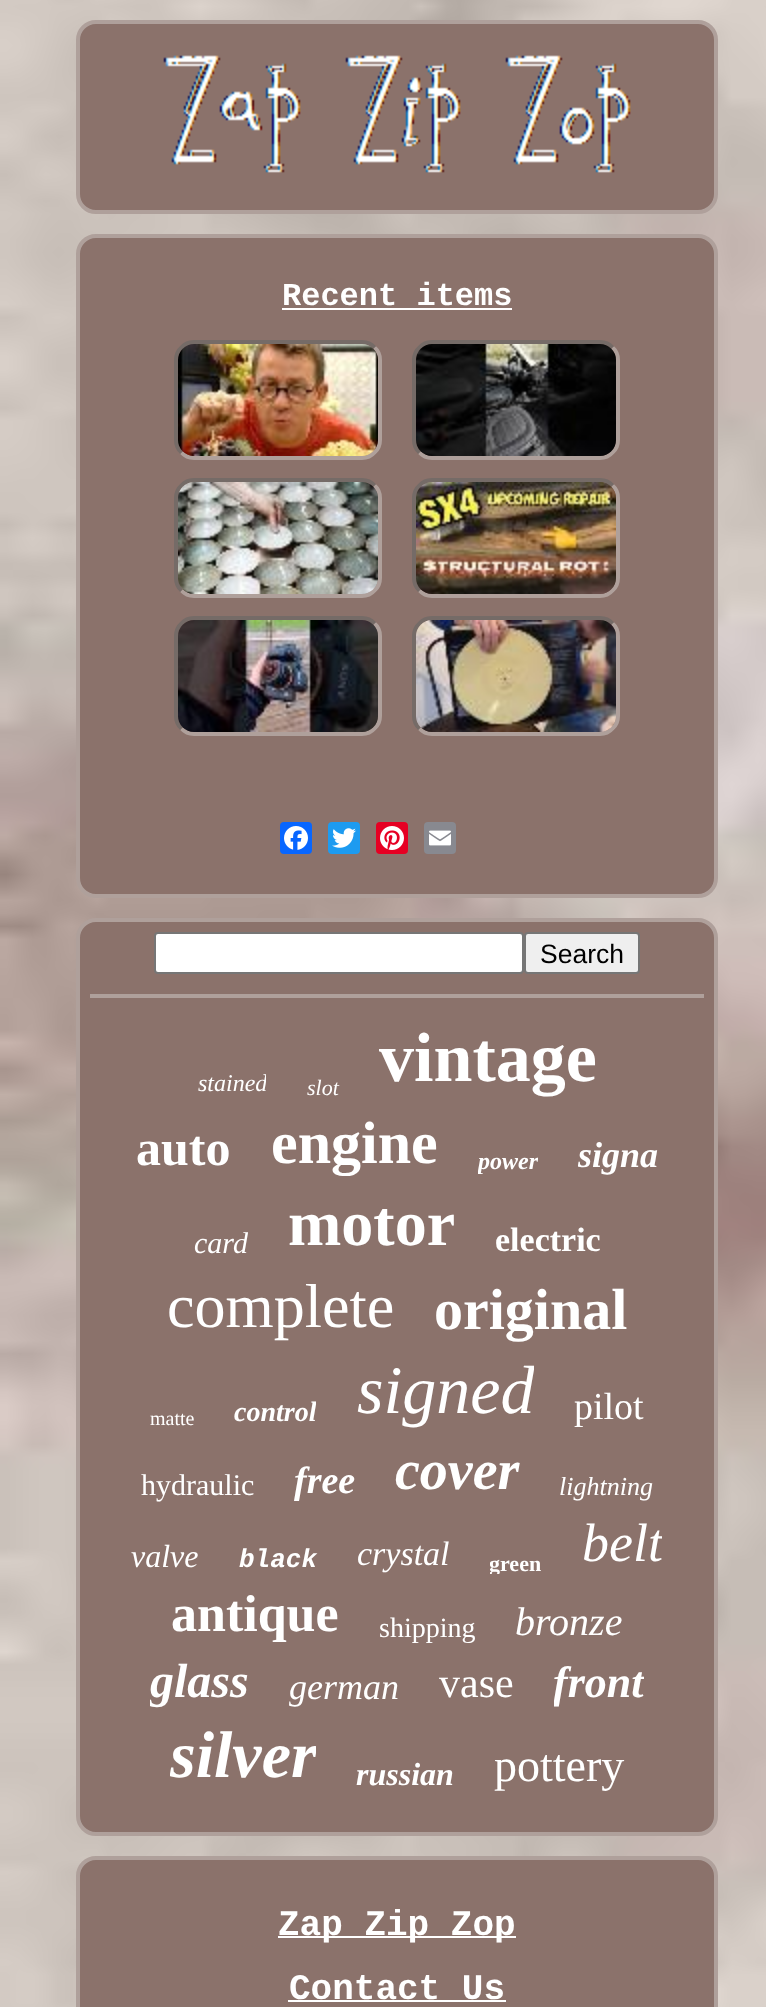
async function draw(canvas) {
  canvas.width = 766
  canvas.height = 2007
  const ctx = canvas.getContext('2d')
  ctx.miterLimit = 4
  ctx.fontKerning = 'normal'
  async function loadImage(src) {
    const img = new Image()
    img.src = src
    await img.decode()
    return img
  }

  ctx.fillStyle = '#fff'
  ctx.fillRect(0, 0, 766, 2007)
  ctx.drawImage(await loadImage('image0.png'), 0, 0, 766, 2007)
  ctx.fillStyle = '#8b726b'
  ctx.beginPath()
  ctx.roundRect(78, 22, 638, 190, 18)
  ctx.fill()
  ctx.strokeStyle = '#afa09b'
  ctx.lineWidth = 4
  ctx.stroke()
  ctx.drawImage(await loadImage('image1.png'), 163, 55, 468, 118)
  ctx.beginPath()
  ctx.roundRect(78, 236, 638, 660, 18)
  ctx.fill()
  ctx.stroke()
  ctx.font = 'bold 32px Liberation Mono'
  ctx.fillStyle = '#fff'
  ctx.fillText('Recent items', 282, 305)
  ctx.fillRect(282, 308, 230, 2)
  ctx.beginPath()
  ctx.moveTo(374.5, 347.5)
  ctx.bezierCurveTo(378, 350.5, 380, 355, 380, 360)
  ctx.lineTo(380, 440)
  ctx.bezierCurveTo(380, 445, 378, 449.5, 374.5, 452.5)
  ctx.bezierCurveTo(371.5, 456, 367, 458, 362, 458)
  ctx.lineTo(194, 458)
  ctx.bezierCurveTo(189, 458, 184.5, 456, 181.5, 452.5)
  ctx.stroke()
  ctx.beginPath()
  ctx.moveTo(181.5, 452.5)
  ctx.bezierCurveTo(178, 449.5, 176, 445, 176, 440)
  ctx.lineTo(176, 360)
  ctx.bezierCurveTo(176, 355, 178, 350.5, 181.5, 347.5)
  ctx.bezierCurveTo(184.5, 344, 189, 342, 194, 342)
  ctx.lineTo(362, 342)
  ctx.bezierCurveTo(367, 342, 371.5, 344, 374.5, 347.5)
  ctx.strokeStyle = '#756b67'
  ctx.stroke()
  ctx.beginPath()
  ctx.moveTo(612.5, 347.5)
  ctx.bezierCurveTo(616, 350.5, 618, 355, 618, 360)
  ctx.lineTo(618, 440)
  ctx.bezierCurveTo(618, 445, 616, 449.5, 612.5, 452.5)
  ctx.bezierCurveTo(609.5, 456, 605, 458, 600, 458)
  ctx.lineTo(432, 458)
  ctx.bezierCurveTo(427, 458, 422.5, 456, 419.5, 452.5)
  ctx.strokeStyle = '#afa09b'
  ctx.stroke()
  ctx.beginPath()
  ctx.moveTo(419.5, 452.5)
  ctx.bezierCurveTo(416, 449.5, 414, 445, 414, 440)
  ctx.lineTo(414, 360)
  ctx.bezierCurveTo(414, 355, 416, 350.5, 419.5, 347.5)
  ctx.bezierCurveTo(422.5, 344, 427, 342, 432, 342)
  ctx.lineTo(600, 342)
  ctx.bezierCurveTo(605, 342, 609.5, 344, 612.5, 347.5)
  ctx.strokeStyle = '#756b67'
  ctx.stroke()
  ctx.drawImage(await loadImage('image2.png'), 178, 344, 200, 112)
  ctx.drawImage(await loadImage('image3.png'), 416, 344, 200, 112)
  ctx.beginPath()
  ctx.moveTo(374.5, 485.5)
  ctx.bezierCurveTo(378, 488.5, 380, 493, 380, 498)
  ctx.lineTo(380, 578)
  ctx.bezierCurveTo(380, 583, 378, 587.5, 374.5, 590.5)
  ctx.bezierCurveTo(371.5, 594, 367, 596, 362, 596)
  ctx.lineTo(194, 596)
  ctx.bezierCurveTo(189, 596, 184.5, 594, 181.5, 590.5)
  ctx.strokeStyle = '#afa09b'
  ctx.stroke()
  ctx.beginPath()
  ctx.moveTo(181.5, 590.5)
  ctx.bezierCurveTo(178, 587.5, 176, 583, 176, 578)
  ctx.lineTo(176, 498)
  ctx.bezierCurveTo(176, 493, 178, 488.5, 181.5, 485.5)
  ctx.bezierCurveTo(184.5, 482, 189, 480, 194, 480)
  ctx.lineTo(362, 480)
  ctx.bezierCurveTo(367, 480, 371.5, 482, 374.5, 485.5)
  ctx.strokeStyle = '#756b67'
  ctx.stroke()
  ctx.beginPath()
  ctx.moveTo(612.5, 485.5)
  ctx.bezierCurveTo(616, 488.5, 618, 493, 618, 498)
  ctx.lineTo(618, 578)
  ctx.bezierCurveTo(618, 583, 616, 587.5, 612.5, 590.5)
  ctx.bezierCurveTo(609.5, 594, 605, 596, 600, 596)
  ctx.lineTo(432, 596)
  ctx.bezierCurveTo(427, 596, 422.5, 594, 419.5, 590.5)
  ctx.strokeStyle = '#afa09b'
  ctx.stroke()
  ctx.beginPath()
  ctx.moveTo(419.5, 590.5)
  ctx.bezierCurveTo(416, 587.5, 414, 583, 414, 578)
  ctx.lineTo(414, 498)
  ctx.bezierCurveTo(414, 493, 416, 488.5, 419.5, 485.5)
  ctx.bezierCurveTo(422.5, 482, 427, 480, 432, 480)
  ctx.lineTo(600, 480)
  ctx.bezierCurveTo(605, 480, 609.5, 482, 612.5, 485.5)
  ctx.strokeStyle = '#756b67'
  ctx.stroke()
  ctx.drawImage(await loadImage('image4.png'), 178, 482, 200, 112)
  ctx.drawImage(await loadImage('image5.png'), 416, 482, 200, 112)
  ctx.beginPath()
  ctx.moveTo(374.5, 623.5)
  ctx.bezierCurveTo(378, 626.5, 380, 631, 380, 636)
  ctx.lineTo(380, 716)
  ctx.bezierCurveTo(380, 721, 378, 725.5, 374.5, 728.5)
  ctx.bezierCurveTo(371.5, 732, 367, 734, 362, 734)
  ctx.lineTo(194, 734)
  ctx.bezierCurveTo(189, 734, 184.5, 732, 181.5, 728.5)
  ctx.strokeStyle = '#afa09b'
  ctx.stroke()
  ctx.beginPath()
  ctx.moveTo(181.5, 728.5)
  ctx.bezierCurveTo(178, 725.5, 176, 721, 176, 716)
  ctx.lineTo(176, 636)
  ctx.bezierCurveTo(176, 631, 178, 626.5, 181.5, 623.5)
  ctx.bezierCurveTo(184.5, 620, 189, 618, 194, 618)
  ctx.lineTo(362, 618)
  ctx.bezierCurveTo(367, 618, 371.5, 620, 374.5, 623.5)
  ctx.strokeStyle = '#756b67'
  ctx.stroke()
  ctx.beginPath()
  ctx.moveTo(612.5, 623.5)
  ctx.bezierCurveTo(616, 626.5, 618, 631, 618, 636)
  ctx.lineTo(618, 716)
  ctx.bezierCurveTo(618, 721, 616, 725.5, 612.5, 728.5)
  ctx.bezierCurveTo(609.5, 732, 605, 734, 600, 734)
  ctx.lineTo(432, 734)
  ctx.bezierCurveTo(427, 734, 422.5, 732, 419.5, 728.5)
  ctx.strokeStyle = '#afa09b'
  ctx.stroke()
  ctx.beginPath()
  ctx.moveTo(419.5, 728.5)
  ctx.bezierCurveTo(416, 725.5, 414, 721, 414, 716)
  ctx.lineTo(414, 636)
  ctx.bezierCurveTo(414, 631, 416, 626.5, 419.5, 623.5)
  ctx.bezierCurveTo(422.5, 620, 427, 618, 432, 618)
  ctx.lineTo(600, 618)
  ctx.bezierCurveTo(605, 618, 609.5, 620, 612.5, 623.5)
  ctx.strokeStyle = '#756b67'
  ctx.stroke()
  ctx.drawImage(await loadImage('image6.png'), 178, 620, 200, 112)
  ctx.drawImage(await loadImage('image7.png'), 416, 620, 200, 112)
  ctx.fillStyle = '#0866ff'
  ctx.beginPath()
  ctx.roundRect(280, 822, 32, 32, 4)
  ctx.fill()
  ctx.drawImage(await loadImage('image8.png'), 284, 826, 24, 24)
  ctx.fillStyle = '#1d9bf0'
  ctx.beginPath()
  ctx.roundRect(328, 822, 32, 32, 4)
  ctx.fill()
  ctx.drawImage(await loadImage('image9.png'), 332, 828, 24, 20)
  ctx.fillStyle = '#e60023'
  ctx.beginPath()
  ctx.roundRect(376, 822, 32, 32, 4)
  ctx.fill()
  ctx.drawImage(await loadImage('image10.png'), 380, 826, 24, 24)
  ctx.fillStyle = '#888990'
  ctx.beginPath()
  ctx.roundRect(424, 822, 32, 32, 4)
  ctx.fill()
  ctx.drawImage(await loadImage('image11.png'), 429, 830, 22, 16)
  ctx.fillStyle = '#8b726b'
  ctx.beginPath()
  ctx.roundRect(78, 920, 638, 914, 18)
  ctx.fill()
  ctx.strokeStyle = '#afa09b'
  ctx.stroke()
  ctx.fillStyle = '#fff'
  ctx.beginPath()
  ctx.roundRect(155, 933, 368, 40, 3)
  ctx.fill()
  ctx.strokeStyle = '#767676'
  ctx.lineWidth = 2
  ctx.stroke()
  ctx.fillStyle = '#efefef'
  ctx.beginPath()
  ctx.roundRect(525, 933, 114, 40, 3)
  ctx.fill()
  ctx.stroke()
  ctx.font = '26.5px Liberation Sans'
  ctx.fillStyle = '#000'
  ctx.fillText('Search', 540, 963)
  ctx.fillStyle = '#afa09b'
  ctx.fillRect(90, 994, 614, 4)
  ctx.save()
  ctx.beginPath()
  ctx.rect(198, 1068, 68, 30)
  ctx.clip()
  ctx.font = 'italic 24px Liberation Serif'
  ctx.fillStyle = '#fff'
  ctx.fillText('stained', 198, 1091)
  ctx.restore()
  ctx.font = 'italic 22px Liberation Serif'
  ctx.fillStyle = '#fff'
  ctx.fillText('slot', 307, 1095)
  ctx.font = 'bold 70px Liberation Serif'
  ctx.fillText('vintage', 379, 1081)
  ctx.font = 'bold 50px Liberation Serif'
  ctx.fillText('auto', 136, 1165)
  ctx.save()
  ctx.beginPath()
  ctx.rect(270, 1108, 168, 68)
  ctx.clip()
  ctx.font = 'bold 60px Liberation Serif'
  ctx.fillText('engine', 271, 1163)
  ctx.restore()
  ctx.save()
  ctx.beginPath()
  ctx.rect(478, 1146, 60, 30)
  ctx.clip()
  ctx.font = 'italic bold 24px Liberation Serif'
  ctx.fillText('power', 478, 1169)
  ctx.restore()
  ctx.save()
  ctx.beginPath()
  ctx.rect(578, 1134, 80, 42)
  ctx.clip()
  ctx.font = 'italic bold 36px Liberation Serif'
  ctx.fillText('signa', 578, 1167)
  ctx.restore()
  ctx.font = 'italic 30px Liberation Serif'
  ctx.fillText('card', 194, 1253)
  ctx.font = 'bold 64px Liberation Serif'
  ctx.fillText('motor', 288, 1245)
  ctx.font = 'bold 34px Liberation Serif'
  ctx.fillText('electric', 495, 1251)
  ctx.font = '62px Liberation Serif'
  ctx.fillText('complete', 167, 1327)
  ctx.font = 'bold 58px Liberation Serif'
  ctx.fillText('original', 434, 1329)
  ctx.font = '20px Liberation Serif'
  ctx.fillText('matte', 150, 1425)
  ctx.save()
  ctx.beginPath()
  ctx.rect(234, 1396, 82, 32)
  ctx.clip()
  ctx.font = 'italic bold 28px Liberation Serif'
  ctx.fillText('control', 234, 1421)
  ctx.restore()
  ctx.save()
  ctx.beginPath()
  ctx.rect(356, 1352, 178, 76)
  ctx.clip()
  ctx.font = 'italic 68px Liberation Serif'
  ctx.fillText('signed', 357, 1413)
  ctx.restore()
  ctx.font = '38px Liberation Serif'
  ctx.fillText('pilot', 574, 1419)
  ctx.font = '30px Liberation Serif'
  ctx.fillText('hydraulic', 141, 1495)
  ctx.font = 'italic bold 38px Liberation Serif'
  ctx.fillText('free', 294, 1493)
  ctx.font = 'italic bold 56px Liberation Serif'
  ctx.fillText('cover', 395, 1489)
  ctx.font = 'italic 26px Liberation Serif'
  ctx.fillText('lightning', 559, 1495)
  ctx.font = 'italic 32px Liberation Serif'
  ctx.fillText('valve', 131, 1567)
  ctx.font = 'italic bold 26px Liberation Mono'
  ctx.fillText('black', 239, 1567)
  ctx.font = 'italic 34px Liberation Serif'
  ctx.fillText('crystal', 357, 1565)
  ctx.save()
  ctx.beginPath()
  ctx.rect(490, 1550, 52, 24)
  ctx.clip()
  ctx.font = 'bold 22px Liberation Serif'
  ctx.fillText('green', 489, 1571)
  ctx.restore()
  ctx.save()
  ctx.beginPath()
  ctx.rect(582, 1512, 80, 62)
  ctx.clip()
  ctx.font = 'italic 54px Liberation Serif'
  ctx.fillText('belt', 582, 1561)
  ctx.restore()
  ctx.font = 'bold 52px Liberation Serif'
  ctx.fillText('antique', 171, 1631)
  ctx.font = '28px Liberation Serif'
  ctx.fillText('shipping', 379, 1637)
  ctx.font = 'italic 40px Liberation Serif'
  ctx.fillText('bronze', 515, 1635)
  ctx.save()
  ctx.beginPath()
  ctx.rect(150, 1654, 98, 54)
  ctx.clip()
  ctx.font = 'italic bold 48px Liberation Serif'
  ctx.fillText('glass', 150, 1697)
  ctx.restore()
  ctx.font = 'italic 36px Liberation Serif'
  ctx.fillText('german', 289, 1699)
  ctx.font = '42px Liberation Serif'
  ctx.fillText('vase', 439, 1697)
  ctx.save()
  ctx.beginPath()
  ctx.rect(554, 1656, 90, 52)
  ctx.clip()
  ctx.font = 'italic bold 44px Liberation Serif'
  ctx.fillText('front', 553, 1697)
  ctx.restore()
  ctx.save()
  ctx.beginPath()
  ctx.rect(170, 1718, 146, 74)
  ctx.clip()
  ctx.font = 'italic bold 66px Liberation Serif'
  ctx.fillText('silver', 170, 1777)
  ctx.restore()
  ctx.font = 'italic bold 32px Liberation Serif'
  ctx.fillText('russian', 356, 1785)
  ctx.font = '46px Liberation Serif'
  ctx.fillText('pottery', 494, 1781)
  ctx.fillStyle = '#8b726b'
  ctx.beginPath()
  ctx.roundRect(78, 1858, 638, 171, 18)
  ctx.fill()
  ctx.strokeStyle = '#afa09b'
  ctx.lineWidth = 4
  ctx.stroke()
  ctx.fillStyle = '#fff'
  ctx.fillRect(278, 1936, 238, 2)
  ctx.font = 'bold 36px Liberation Mono'
  ctx.fillText('Zap Zip Zop', 278, 1935)
  ctx.fillText('Contact Us', 289, 1999)
  ctx.fillRect(288, 2000, 218, 2)
}

draw(document.querySelector('canvas'))
